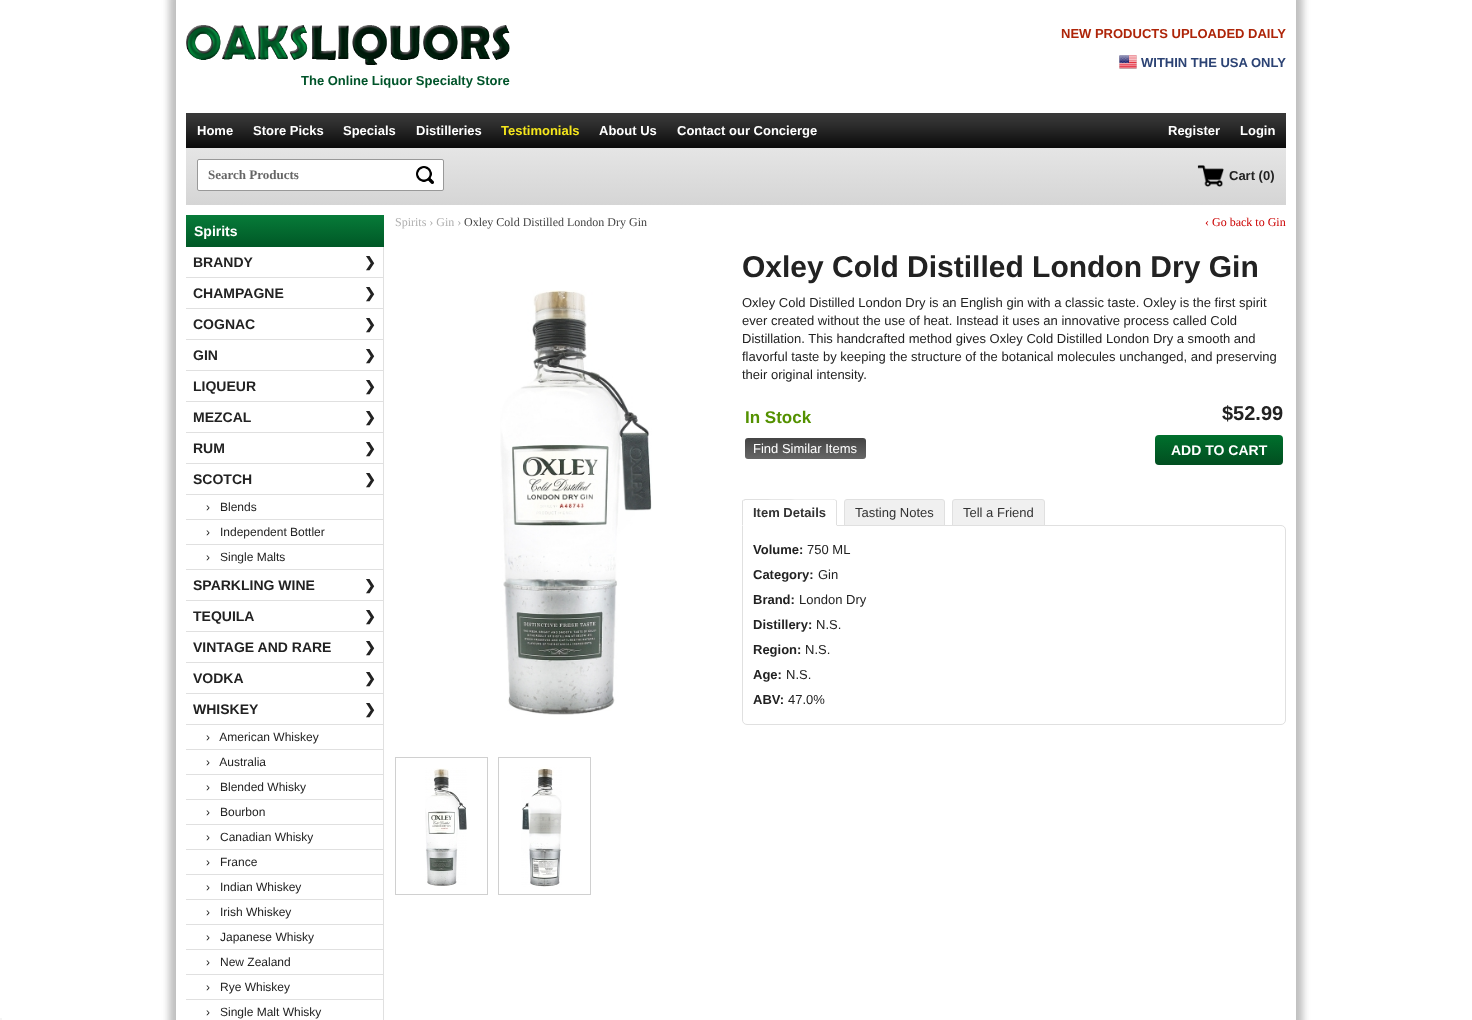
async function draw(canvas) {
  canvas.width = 1472
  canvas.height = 1020
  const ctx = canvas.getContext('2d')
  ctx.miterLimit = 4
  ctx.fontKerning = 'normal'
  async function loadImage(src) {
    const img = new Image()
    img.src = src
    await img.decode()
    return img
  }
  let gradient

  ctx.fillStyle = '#fff'
  ctx.fillRect(0, 0, 1472, 1020)
  ctx.fillStyle = '#f5f5f5'
  ctx.fillRect(0, 1018, 2, 2)
  ctx.save()
  ctx.beginPath()
  ctx.moveTo(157, 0)
  ctx.lineTo(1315, 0)
  ctx.lineTo(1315, 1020)
  ctx.lineTo(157, 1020)
  ctx.closePath()
  ctx.moveTo(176, 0)
  ctx.lineTo(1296, 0)
  ctx.lineTo(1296, 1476)
  ctx.lineTo(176, 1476)
  ctx.closePath()
  ctx.clip('evenodd')
  ctx.fillStyle = '#c0c0c0'
  ctx.filter = 'blur(3.5px)'
  ctx.beginPath()
  ctx.rect(169, -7, 1134, 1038)
  ctx.fill()
  ctx.filter = 'none'
  ctx.restore()
  ctx.font = 'bold 13px Liberation Sans'
  ctx.fillStyle = '#ae2509'
  ctx.fillText('NEW PRODUCTS UPLOADED DAILY', 1061, 38)
  ctx.drawImage(await loadImage('image0.png'), 1119, 55, 18, 14)
  ctx.fillStyle = '#2c4374'
  ctx.fillText('WITHIN THE USA ONLY', 1141, 67)
  ctx.drawImage(await loadImage('image1.png'), 186, 25, 324, 40)
  ctx.fillStyle = '#00542a'
  ctx.fillText('The Online Liquor Specialty Store', 301, 85)
  ctx.drawImage(await loadImage('image2.png'), 186, 113, 1100, 35)
  ctx.fillStyle = '#fff'
  ctx.fillText('Home', 197, 135)
  ctx.fillText('Store Picks', 253, 135)
  ctx.fillText('Specials', 343, 135)
  ctx.fillText('Distilleries', 416, 135)
  ctx.fillStyle = '#f5e61c'
  ctx.fillText('Testimonials', 501, 135)
  ctx.fillStyle = '#fff'
  ctx.fillText('About Us', 599, 135)
  ctx.fillText('Contact our Concierge', 677, 135)
  ctx.fillText('Register', 1168, 135)
  ctx.fillText('Login', 1240, 135)
  gradient = ctx.createLinearGradient(186, 148, 186, 205)
  gradient.addColorStop(0, '#e5e5e5')
  gradient.addColorStop(1, '#d5d5d5')
  ctx.fillStyle = gradient
  ctx.fillRect(186, 148, 1100, 57)
  ctx.fillStyle = '#fff'
  ctx.beginPath()
  ctx.roundRect(197.5, 159.5, 246, 31, 1.5)
  ctx.fill()
  ctx.strokeStyle = '#999'
  ctx.stroke()
  ctx.font = 'bold 13px Liberation Serif'
  ctx.fillStyle = '#666'
  ctx.fillText('Search Products', 208, 179)
  ctx.drawImage(await loadImage('image3.png'), 416, 166, 18, 18)
  ctx.drawImage(await loadImage('image4.png'), 1197, 165, 27, 22)
  ctx.font = 'bold 13px Liberation Sans'
  ctx.fillStyle = '#222'
  ctx.fillText('Cart (0)', 1229, 180)
  gradient = ctx.createLinearGradient(186, 215, 186, 247)
  gradient.addColorStop(0, '#077b39')
  gradient.addColorStop(1, '#005826')
  ctx.fillStyle = gradient
  ctx.fillRect(186, 215, 198, 32)
  ctx.font = 'bold 14px Liberation Sans'
  ctx.fillStyle = '#fff'
  ctx.fillText('Spirits', 194, 236)
  ctx.fillStyle = '#e0e0e0'
  ctx.fillRect(383, 247, 1, 773)
  ctx.fillRect(186, 277, 197, 1)
  ctx.fillStyle = '#222'
  ctx.fillText('BRANDY', 193, 267)
  ctx.font = 'bold 14px DejaVu Sans'
  ctx.fillText('❯', 364, 267)
  ctx.fillStyle = '#e0e0e0'
  ctx.fillRect(186, 308, 197, 1)
  ctx.font = 'bold 14px Liberation Sans'
  ctx.fillStyle = '#222'
  ctx.fillText('CHAMPAGNE', 193, 298)
  ctx.font = 'bold 14px DejaVu Sans'
  ctx.fillText('❯', 364, 298)
  ctx.fillStyle = '#e0e0e0'
  ctx.fillRect(186, 339, 197, 1)
  ctx.font = 'bold 14px Liberation Sans'
  ctx.fillStyle = '#222'
  ctx.fillText('COGNAC', 193, 329)
  ctx.font = 'bold 14px DejaVu Sans'
  ctx.fillText('❯', 364, 329)
  ctx.fillStyle = '#e0e0e0'
  ctx.fillRect(186, 370, 197, 1)
  ctx.font = 'bold 14px Liberation Sans'
  ctx.fillStyle = '#222'
  ctx.fillText('GIN', 193, 360)
  ctx.font = 'bold 14px DejaVu Sans'
  ctx.fillText('❯', 364, 360)
  ctx.fillStyle = '#e0e0e0'
  ctx.fillRect(186, 401, 197, 1)
  ctx.font = 'bold 14px Liberation Sans'
  ctx.fillStyle = '#222'
  ctx.fillText('LIQUEUR', 193, 391)
  ctx.font = 'bold 14px DejaVu Sans'
  ctx.fillText('❯', 364, 391)
  ctx.fillStyle = '#e0e0e0'
  ctx.fillRect(186, 432, 197, 1)
  ctx.font = 'bold 14px Liberation Sans'
  ctx.fillStyle = '#222'
  ctx.fillText('MEZCAL', 193, 422)
  ctx.font = 'bold 14px DejaVu Sans'
  ctx.fillText('❯', 364, 422)
  ctx.fillStyle = '#e0e0e0'
  ctx.fillRect(186, 463, 197, 1)
  ctx.font = 'bold 14px Liberation Sans'
  ctx.fillStyle = '#222'
  ctx.fillText('RUM', 193, 453)
  ctx.font = 'bold 14px DejaVu Sans'
  ctx.fillText('❯', 364, 453)
  ctx.fillStyle = '#e0e0e0'
  ctx.fillRect(186, 494, 197, 1)
  ctx.font = 'bold 14px Liberation Sans'
  ctx.fillStyle = '#222'
  ctx.fillText('SCOTCH', 193, 484)
  ctx.font = 'bold 14px DejaVu Sans'
  ctx.fillText('❯', 364, 484)
  ctx.fillStyle = '#e0e0e0'
  ctx.fillRect(186, 519, 197, 1)
  ctx.font = '12px Liberation Sans'
  ctx.fillStyle = '#222'
  ctx.fillText('›   Blends', 206, 511)
  ctx.fillStyle = '#e0e0e0'
  ctx.fillRect(186, 544, 197, 1)
  ctx.fillStyle = '#222'
  ctx.fillText('›   Independent Bottler', 206, 536)
  ctx.fillStyle = '#e0e0e0'
  ctx.fillRect(186, 569, 197, 1)
  ctx.fillStyle = '#222'
  ctx.fillText('›   Single Malts', 206, 561)
  ctx.fillStyle = '#e0e0e0'
  ctx.fillRect(186, 600, 197, 1)
  ctx.font = 'bold 14px Liberation Sans'
  ctx.fillStyle = '#222'
  ctx.fillText('SPARKLING WINE', 193, 590)
  ctx.font = 'bold 14px DejaVu Sans'
  ctx.fillText('❯', 364, 590)
  ctx.fillStyle = '#e0e0e0'
  ctx.fillRect(186, 631, 197, 1)
  ctx.font = 'bold 14px Liberation Sans'
  ctx.fillStyle = '#222'
  ctx.fillText('TEQUILA', 193, 621)
  ctx.font = 'bold 14px DejaVu Sans'
  ctx.fillText('❯', 364, 621)
  ctx.fillStyle = '#e0e0e0'
  ctx.fillRect(186, 662, 197, 1)
  ctx.font = 'bold 14px Liberation Sans'
  ctx.fillStyle = '#222'
  ctx.fillText('VINTAGE AND RARE', 193, 652)
  ctx.font = 'bold 14px DejaVu Sans'
  ctx.fillText('❯', 364, 652)
  ctx.fillStyle = '#e0e0e0'
  ctx.fillRect(186, 693, 197, 1)
  ctx.font = 'bold 14px Liberation Sans'
  ctx.fillStyle = '#222'
  ctx.fillText('VODKA', 193, 683)
  ctx.font = 'bold 14px DejaVu Sans'
  ctx.fillText('❯', 364, 683)
  ctx.fillStyle = '#e0e0e0'
  ctx.fillRect(186, 724, 197, 1)
  ctx.font = 'bold 14px Liberation Sans'
  ctx.fillStyle = '#222'
  ctx.fillText('WHISKEY', 193, 714)
  ctx.font = 'bold 14px DejaVu Sans'
  ctx.fillText('❯', 364, 714)
  ctx.fillStyle = '#e0e0e0'
  ctx.fillRect(186, 749, 197, 1)
  ctx.font = '12px Liberation Sans'
  ctx.fillStyle = '#222'
  ctx.fillText('›   American Whiskey', 206, 741)
  ctx.fillStyle = '#e0e0e0'
  ctx.fillRect(186, 774, 197, 1)
  ctx.fillStyle = '#222'
  ctx.fillText('›   Australia', 206, 766)
  ctx.fillStyle = '#e0e0e0'
  ctx.fillRect(186, 799, 197, 1)
  ctx.fillStyle = '#222'
  ctx.fillText('›   Blended Whisky', 206, 791)
  ctx.fillStyle = '#e0e0e0'
  ctx.fillRect(186, 824, 197, 1)
  ctx.fillStyle = '#222'
  ctx.fillText('›   Bourbon', 206, 816)
  ctx.fillStyle = '#e0e0e0'
  ctx.fillRect(186, 849, 197, 1)
  ctx.fillStyle = '#222'
  ctx.fillText('›   Canadian Whisky', 206, 841)
  ctx.fillStyle = '#e0e0e0'
  ctx.fillRect(186, 874, 197, 1)
  ctx.fillStyle = '#222'
  ctx.fillText('›   France', 206, 866)
  ctx.fillStyle = '#e0e0e0'
  ctx.fillRect(186, 899, 197, 1)
  ctx.fillStyle = '#222'
  ctx.fillText('›   Indian Whiskey', 206, 891)
  ctx.fillStyle = '#e0e0e0'
  ctx.fillRect(186, 924, 197, 1)
  ctx.fillStyle = '#222'
  ctx.fillText('›   Irish Whiskey', 206, 916)
  ctx.fillStyle = '#e0e0e0'
  ctx.fillRect(186, 949, 197, 1)
  ctx.fillStyle = '#222'
  ctx.fillText('›   Japanese Whisky', 206, 941)
  ctx.fillStyle = '#e0e0e0'
  ctx.fillRect(186, 974, 197, 1)
  ctx.fillStyle = '#222'
  ctx.fillText('›   New Zealand', 206, 966)
  ctx.fillStyle = '#e0e0e0'
  ctx.fillRect(186, 999, 197, 1)
  ctx.fillStyle = '#222'
  ctx.fillText('›   Rye Whiskey', 206, 991)
  ctx.fillText('›   Single Malt Whisky', 206, 1016)
  ctx.font = '12px Liberation Serif'
  ctx.fillStyle = '#b0b0b0'
  ctx.fillText('Spirits › Gin ›', 395, 226)
  ctx.fillStyle = '#444'
  ctx.fillText('Oxley Cold Distilled London Dry Gin', 464, 226)
  ctx.fillStyle = '#c00'
  ctx.fillText('‹ Go back to Gin', 1205, 226)
  ctx.drawImage(await loadImage('image5.png'), 500, 290, 152, 425)
  ctx.strokeStyle = '#d0d0d0'
  ctx.strokeRect(395.5, 757.5, 92, 137)
  ctx.drawImage(await loadImage('image6.png'), 425, 768, 42, 118)
  ctx.strokeRect(498.5, 757.5, 92, 137)
  ctx.drawImage(await loadImage('image7.png'), 521, 767, 41, 120)
  ctx.font = 'bold 30px Liberation Sans'
  ctx.fillStyle = '#222'
  ctx.fillText('Oxley Cold Distilled London Dry Gin', 742, 277)
  ctx.font = '13px Liberation Sans'
  ctx.fillText('Oxley Cold Distilled London Dry is an English gin with a classic taste. Oxley is the first spirit', 742, 307)
  ctx.fillText('ever created without the use of heat. Instead it uses an innovative process called Cold', 742, 325)
  ctx.fillText('Distillation. This handcrafted method gives Oxley Cold Distilled London Dry a smooth and', 742, 343)
  ctx.fillText('flavorful taste by keeping the structure of the botanical molecules unchanged, and preserving', 742, 361)
  ctx.fillText('their original intensity.', 742, 379)
  ctx.font = 'bold 17px Liberation Sans'
  ctx.fillStyle = '#549100'
  ctx.fillText('In Stock', 745, 423)
  gradient = ctx.createLinearGradient(745, 438, 745, 459)
  gradient.addColorStop(0, '#444')
  gradient.addColorStop(1, '#666')
  ctx.fillStyle = gradient
  ctx.beginPath()
  ctx.roundRect(745, 438, 121, 21, 3)
  ctx.fill()
  ctx.font = '13px Liberation Sans'
  ctx.fillStyle = '#fff'
  ctx.fillText('Find Similar Items', 753, 453)
  ctx.font = 'bold 20px Liberation Sans'
  ctx.fillStyle = '#222'
  ctx.fillText('$52.99', 1222, 420)
  gradient = ctx.createLinearGradient(1155, 435, 1155, 465)
  gradient.addColorStop(0, '#00702d')
  gradient.addColorStop(1, '#014e20')
  ctx.fillStyle = gradient
  ctx.beginPath()
  ctx.roundRect(1155, 435, 128, 30, 4)
  ctx.fill()
  ctx.font = 'bold 14px Liberation Sans'
  ctx.fillStyle = '#fff'
  ctx.fillText('ADD TO CART', 1171, 455)
  ctx.beginPath()
  ctx.roundRect(742.5, 525.5, 543, 199, [0, 4.5, 4.5, 4.5])
  ctx.strokeStyle = '#e0e0e0'
  ctx.stroke()
  ctx.beginPath()
  ctx.roundRect(742, 499, 95, 27, [3, 3, 0, 0])
  ctx.fill()
  ctx.fillStyle = '#e0e0e0'
  ctx.beginPath()
  ctx.moveTo(745, 499)
  ctx.lineTo(743, 500)
  ctx.lineTo(744, 501)
  ctx.lineTo(745, 500)
  ctx.lineTo(760, 500)
  ctx.bezierCurveTo(767, 500, 834, 499, 835, 500)
  ctx.lineTo(835, 501)
  ctx.lineTo(836, 500)
  ctx.lineTo(834, 499)
  ctx.closePath()
  ctx.fill()
  ctx.beginPath()
  ctx.moveTo(837, 526)
  ctx.lineTo(837, 502)
  ctx.bezierCurveTo(837, 501, 837, 500, 836, 500)
  ctx.lineTo(835.5, 500.5)
  ctx.bezierCurveTo(836, 501, 836, 501.5, 836, 502)
  ctx.lineTo(836, 525)
  ctx.closePath()
  ctx.fill()
  ctx.fillStyle = '#fff'
  ctx.beginPath()
  ctx.moveTo(837, 526)
  ctx.lineTo(836, 525)
  ctx.lineTo(743, 525)
  ctx.lineTo(742, 526)
  ctx.closePath()
  ctx.fill()
  ctx.fillStyle = '#e0e0e0'
  ctx.beginPath()
  ctx.moveTo(742, 526)
  ctx.lineTo(743, 525)
  ctx.lineTo(743, 502)
  ctx.bezierCurveTo(743, 501.5, 743, 501, 743.5, 500.5)
  ctx.lineTo(743, 500)
  ctx.bezierCurveTo(742, 500, 742, 501, 742, 502)
  ctx.closePath()
  ctx.fill()
  ctx.font = 'bold 13px Liberation Sans'
  ctx.fillStyle = '#333'
  ctx.fillText('Item Details', 753, 517)
  ctx.fillStyle = '#f0f0f0'
  ctx.beginPath()
  ctx.roundRect(844.5, 499.5, 100, 26, [2.5, 2.5, 0, 0])
  ctx.fill()
  ctx.stroke()
  ctx.font = '13px Liberation Sans'
  ctx.fillStyle = '#333'
  ctx.fillText('Tasting Notes', 855, 517)
  ctx.fillStyle = '#f0f0f0'
  ctx.beginPath()
  ctx.roundRect(952.5, 499.5, 92, 26, [2.5, 2.5, 0, 0])
  ctx.fill()
  ctx.stroke()
  ctx.fillStyle = '#333'
  ctx.fillText('Tell a Friend', 963, 517)
  ctx.font = 'bold 13px Liberation Sans'
  ctx.fillStyle = '#222'
  ctx.fillText('Volume:', 753, 554)
  ctx.font = '13px Liberation Sans'
  ctx.fillText('750 ML', 807, 554)
  ctx.font = 'bold 13px Liberation Sans'
  ctx.fillText('Category:', 753, 579)
  ctx.font = '13px Liberation Sans'
  ctx.fillText('Gin', 818, 579)
  ctx.font = 'bold 13px Liberation Sans'
  ctx.fillText('Brand:', 753, 604)
  ctx.font = '13px Liberation Sans'
  ctx.fillText('London Dry', 799, 604)
  ctx.font = 'bold 13px Liberation Sans'
  ctx.fillText('Distillery:', 753, 629)
  ctx.font = '13px Liberation Sans'
  ctx.fillText('N.S.', 816, 629)
  ctx.font = 'bold 13px Liberation Sans'
  ctx.fillText('Region:', 753, 654)
  ctx.font = '13px Liberation Sans'
  ctx.fillText('N.S.', 805, 654)
  ctx.font = 'bold 13px Liberation Sans'
  ctx.fillText('Age:', 753, 679)
  ctx.font = '13px Liberation Sans'
  ctx.fillText('N.S.', 786, 679)
  ctx.font = 'bold 13px Liberation Sans'
  ctx.fillText('ABV:', 753, 704)
  ctx.font = '13px Liberation Sans'
  ctx.fillText('47.0%', 788, 704)
}

draw(document.querySelector('canvas'))
